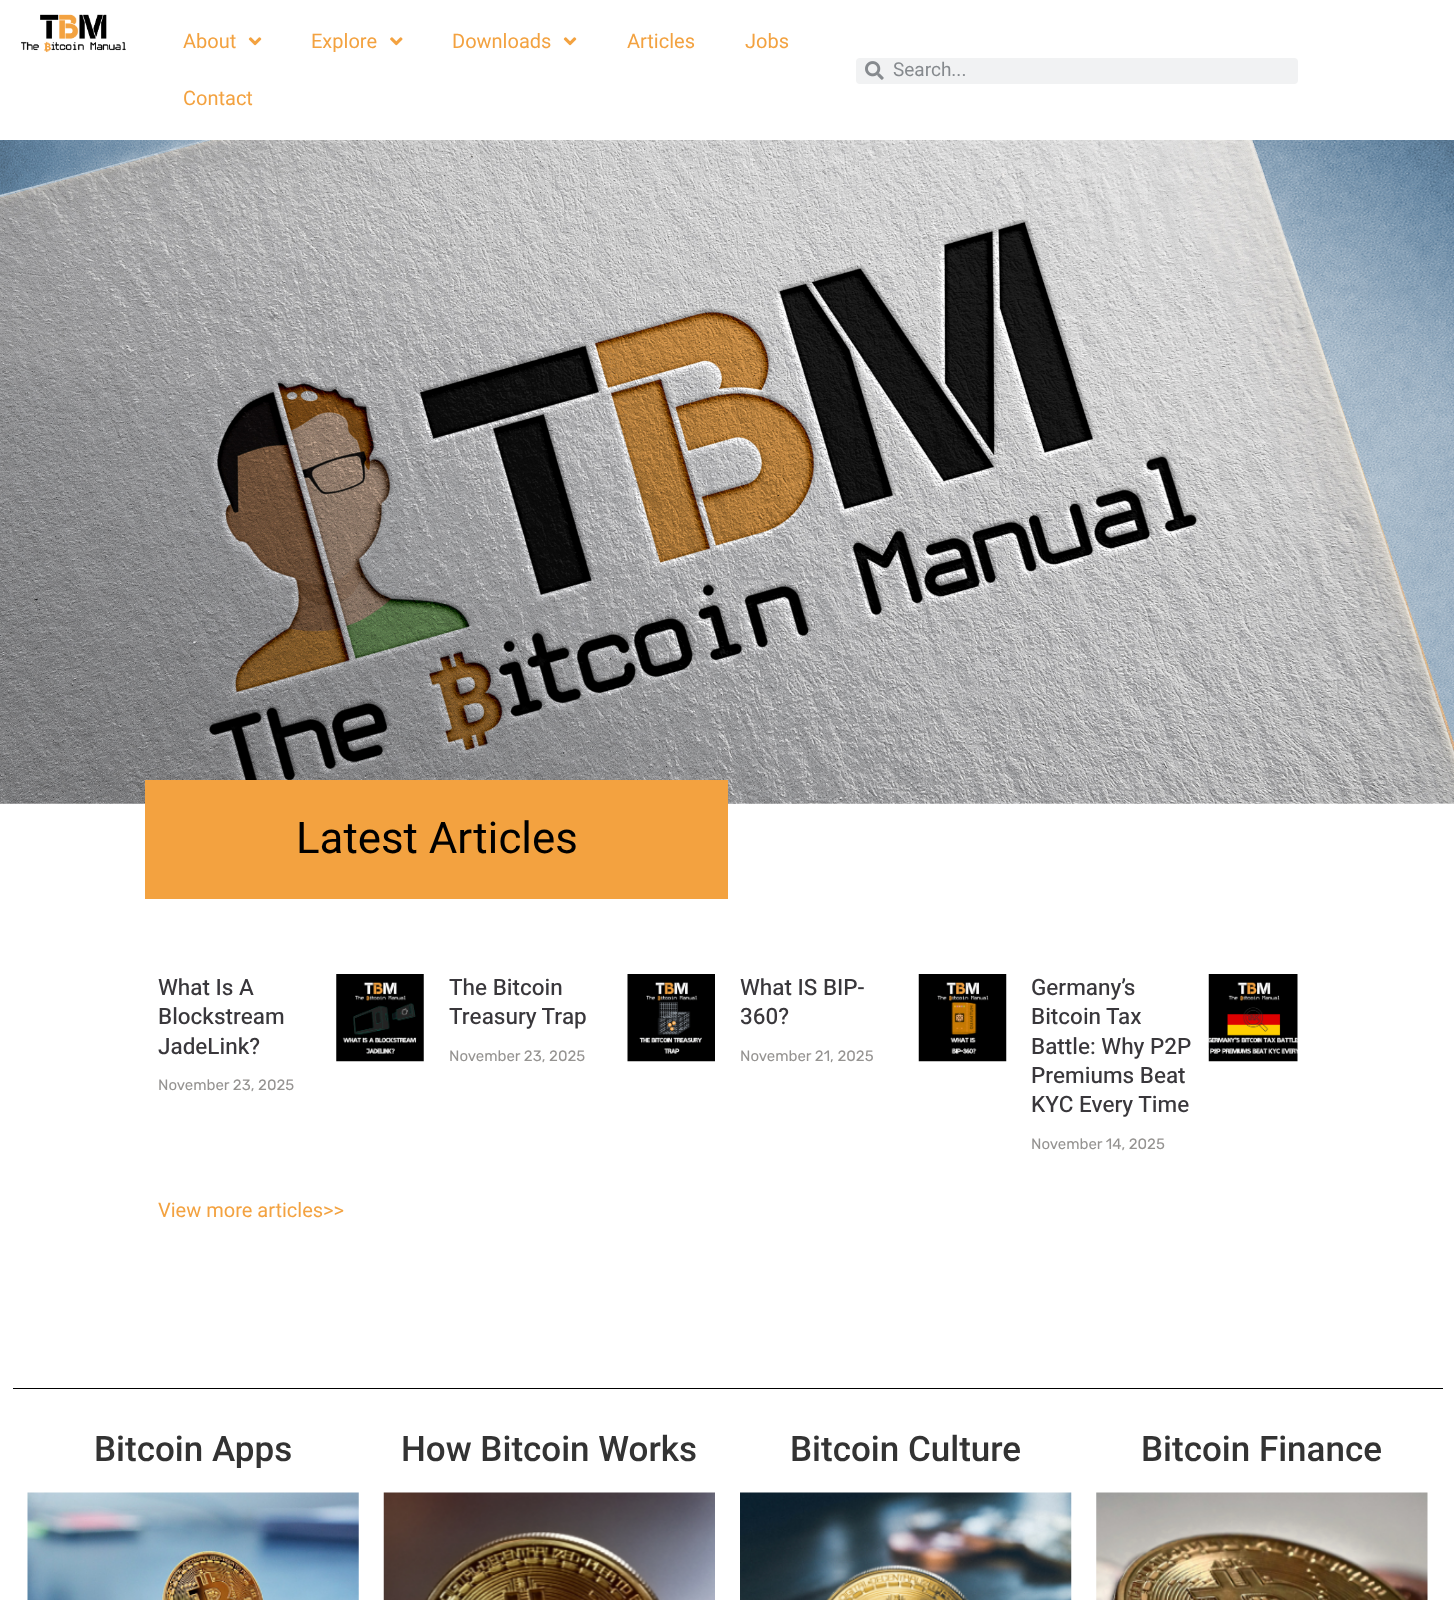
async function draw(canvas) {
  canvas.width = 1454
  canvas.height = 1600
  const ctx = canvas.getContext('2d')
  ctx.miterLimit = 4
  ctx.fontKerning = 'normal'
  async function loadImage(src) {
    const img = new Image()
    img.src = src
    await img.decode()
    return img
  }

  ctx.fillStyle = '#fff'
  ctx.fillRect(0, 0, 1454, 1600)
  ctx.drawImage(await loadImage('image0.png'), 21, 14, 105, 39)
  ctx.font = '20px Roboto'
  ctx.fillStyle = '#f3a240'
  ctx.fillText('About', 183, 48)
  ctx.drawImage(await loadImage('image1.png'), 248, 37, 14, 9)
  ctx.fillText('Explore', 311, 48)
  ctx.drawImage(await loadImage('image2.png'), 390, 37, 13, 9)
  ctx.fillText('Downloads', 452, 48)
  ctx.drawImage(await loadImage('image1.png'), 563, 37, 14, 9)
  ctx.fillText('Articles', 627, 48)
  ctx.fillText('Jobs', 745, 48)
  ctx.fillText('Contact', 183, 105)
  ctx.fillStyle = '#f1f2f3'
  ctx.beginPath()
  ctx.roundRect(856, 58, 442, 26, 4)
  ctx.fill()
  ctx.drawImage(await loadImage('image3.png'), 865, 61, 19, 19)
  ctx.font = '19px Roboto'
  ctx.fillStyle = '#868a8e'
  ctx.fillText('Search...', 893, 76)
  ctx.drawImage(await loadImage('image4.png'), 0, 140, 1454, 664)
  ctx.fillStyle = '#f3a240'
  ctx.fillRect(145, 780, 583, 119)
  ctx.font = '43.75px Heebo'
  ctx.fillStyle = '#000'
  ctx.fillText('Latest Articles', 296, 853)
  ctx.font = '500 22.5px Heebo'
  ctx.fillStyle = '#39373b'
  ctx.fillText('What Is A', 158, 995)
  ctx.fillText('Blockstream', 158, 1024)
  ctx.fillText('JadeLink?', 158, 1054)
  ctx.font = '15px Rubik'
  ctx.fillStyle = '#959391'
  ctx.fillText('November 23, 2025', 158, 1090)
  ctx.drawImage(await loadImage('image5.png'), 336, 974, 88, 88)
  ctx.font = '500 22.5px Heebo'
  ctx.fillStyle = '#39373b'
  ctx.fillText('The Bitcoin', 449, 995)
  ctx.fillText('Treasury Trap', 449, 1024)
  ctx.font = '15px Rubik'
  ctx.fillStyle = '#959391'
  ctx.fillText('November 23, 2025', 449, 1061)
  ctx.drawImage(await loadImage('image6.png'), 627, 974, 88, 88)
  ctx.font = '500 22.5px Heebo'
  ctx.fillStyle = '#39373b'
  ctx.fillText('What IS BIP-', 740, 995)
  ctx.fillText('360?', 740, 1024)
  ctx.font = '15px Rubik'
  ctx.fillStyle = '#959391'
  ctx.fillText('November 21, 2025', 740, 1061)
  ctx.drawImage(await loadImage('image7.png'), 918, 974, 89, 88)
  ctx.font = '500 22.5px Heebo'
  ctx.fillStyle = '#39373b'
  ctx.fillText('Germany’s', 1031, 995)
  ctx.fillText('Bitcoin Tax', 1031, 1024)
  ctx.fillText('Battle: Why P2P', 1031, 1054)
  ctx.fillText('Premiums Beat', 1031, 1083)
  ctx.fillText('KYC Every Time', 1031, 1112)
  ctx.font = '15px Rubik'
  ctx.fillStyle = '#959391'
  ctx.fillText('November 14, 2025', 1031, 1149)
  ctx.drawImage(await loadImage('image8.png'), 1208, 974, 90, 88)
  ctx.font = '20px Roboto'
  ctx.fillStyle = '#f3a240'
  ctx.fillText('View more articles>>', 158, 1217)
  ctx.fillStyle = '#000'
  ctx.fillRect(13, 1388, 1430, 1)
  ctx.font = '500 35px Roboto'
  ctx.fillStyle = '#333'
  ctx.fillText('Bitcoin Apps', 94, 1461)
  ctx.drawImage(await loadImage('image9.png'), 27, 1492, 332, 108)
  ctx.fillText('How Bitcoin Works', 401, 1461)
  ctx.drawImage(await loadImage('image10.png'), 383, 1492, 332, 108)
  ctx.fillText('Bitcoin Culture', 790, 1461)
  ctx.drawImage(await loadImage('image11.png'), 740, 1492, 332, 108)
  ctx.fillText('Bitcoin Finance', 1141, 1461)
  ctx.drawImage(await loadImage('image12.png'), 1096, 1492, 332, 108)
}

draw(document.querySelector('canvas'))
